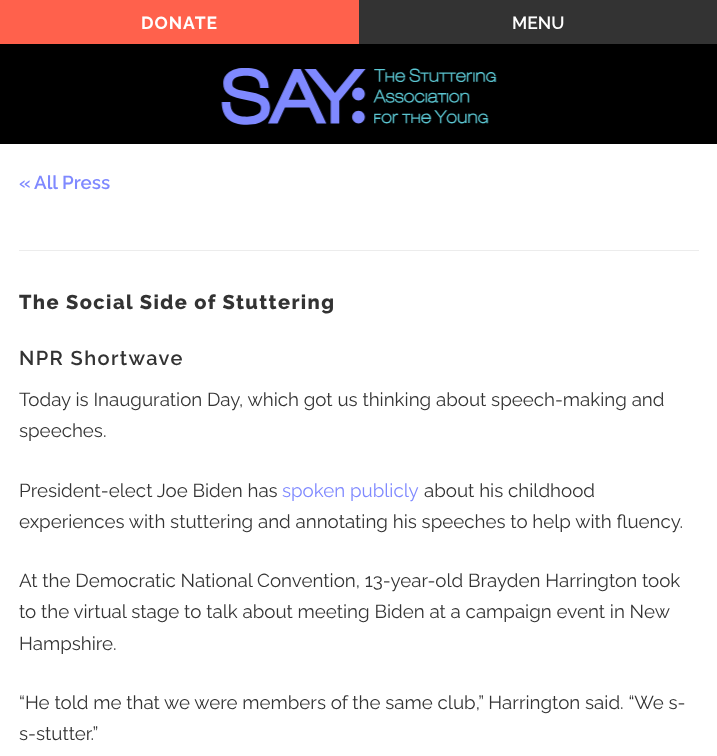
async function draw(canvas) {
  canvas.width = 717
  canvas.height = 756
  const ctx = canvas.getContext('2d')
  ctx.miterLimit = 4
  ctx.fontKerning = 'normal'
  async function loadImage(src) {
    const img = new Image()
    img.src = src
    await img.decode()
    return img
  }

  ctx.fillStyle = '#fff'
  ctx.fillRect(0, 0, 717, 756)
  ctx.fillStyle = '#000'
  ctx.fillRect(0, 44, 717, 100)
  ctx.strokeStyle = '#ff614c'
  ctx.lineWidth = 4
  ctx.strokeRect(2, 2, 355, 40)
  ctx.fillStyle = '#ff614c'
  ctx.beginPath()
  ctx.roundRect(3, 3, 353, 38, 2)
  ctx.fill()
  ctx.letterSpacing = '1px'
  ctx.font = 'bold 17.5px Raleway'
  ctx.fillStyle = '#fff'
  ctx.fillText('DONATE', 141, 29)
  ctx.fillStyle = '#333'
  ctx.fillRect(359, 0, 358, 44)
  ctx.letterSpacing = '0px'
  ctx.font = '600 17.5px Raleway'
  ctx.fillStyle = '#fff'
  ctx.fillText('MENU', 512, 29)
  ctx.drawImage(await loadImage('image0.png'), 221, 68, 276, 57)
  ctx.font = '600 18.75px Raleway'
  ctx.fillStyle = '#7f89ff'
  ctx.fillText('«', 19, 189)
  ctx.fillText('All Press', 34, 189)
  ctx.fillStyle = '#ececec'
  ctx.fillRect(19, 250, 680, 1)
  ctx.letterSpacing = '1.4px'
  ctx.font = '800 20px Raleway'
  ctx.fillStyle = '#333'
  ctx.fillText('The Social Side of Stuttering', 19, 309)
  ctx.font = '600 20px Raleway'
  ctx.fillText('NPR Shortwave', 19, 365)
  ctx.letterSpacing = '0px'
  ctx.font = '18.75px Raleway'
  ctx.fillText('Today is Inauguration Day, which got us thinking about speech-making and', 19, 406)
  ctx.fillText('speeches.', 19, 437)
  ctx.fillText('President-elect Joe Biden has', 19, 497)
  ctx.fillStyle = '#7f89ff'
  ctx.fillText('spoken publicly', 282, 497)
  ctx.fillStyle = '#333'
  ctx.fillText('about his childhood', 424, 497)
  ctx.fillText('experiences with stuttering and annotating his speeches to help with fluency.', 19, 528)
  ctx.fillText('At the Democratic National Convention, 13-year-old Brayden Harrington took', 19, 587)
  ctx.fillText('to the virtual stage to talk about meeting Biden at a campaign event in New', 19, 618)
  ctx.fillText('Hampshire.', 19, 650)
  ctx.fillText('“He told me that we were members of the same club,” Harrington said. “We s-', 19, 709)
  ctx.fillText('s-stutter.”', 19, 740)
}

draw(document.querySelector('canvas'))
